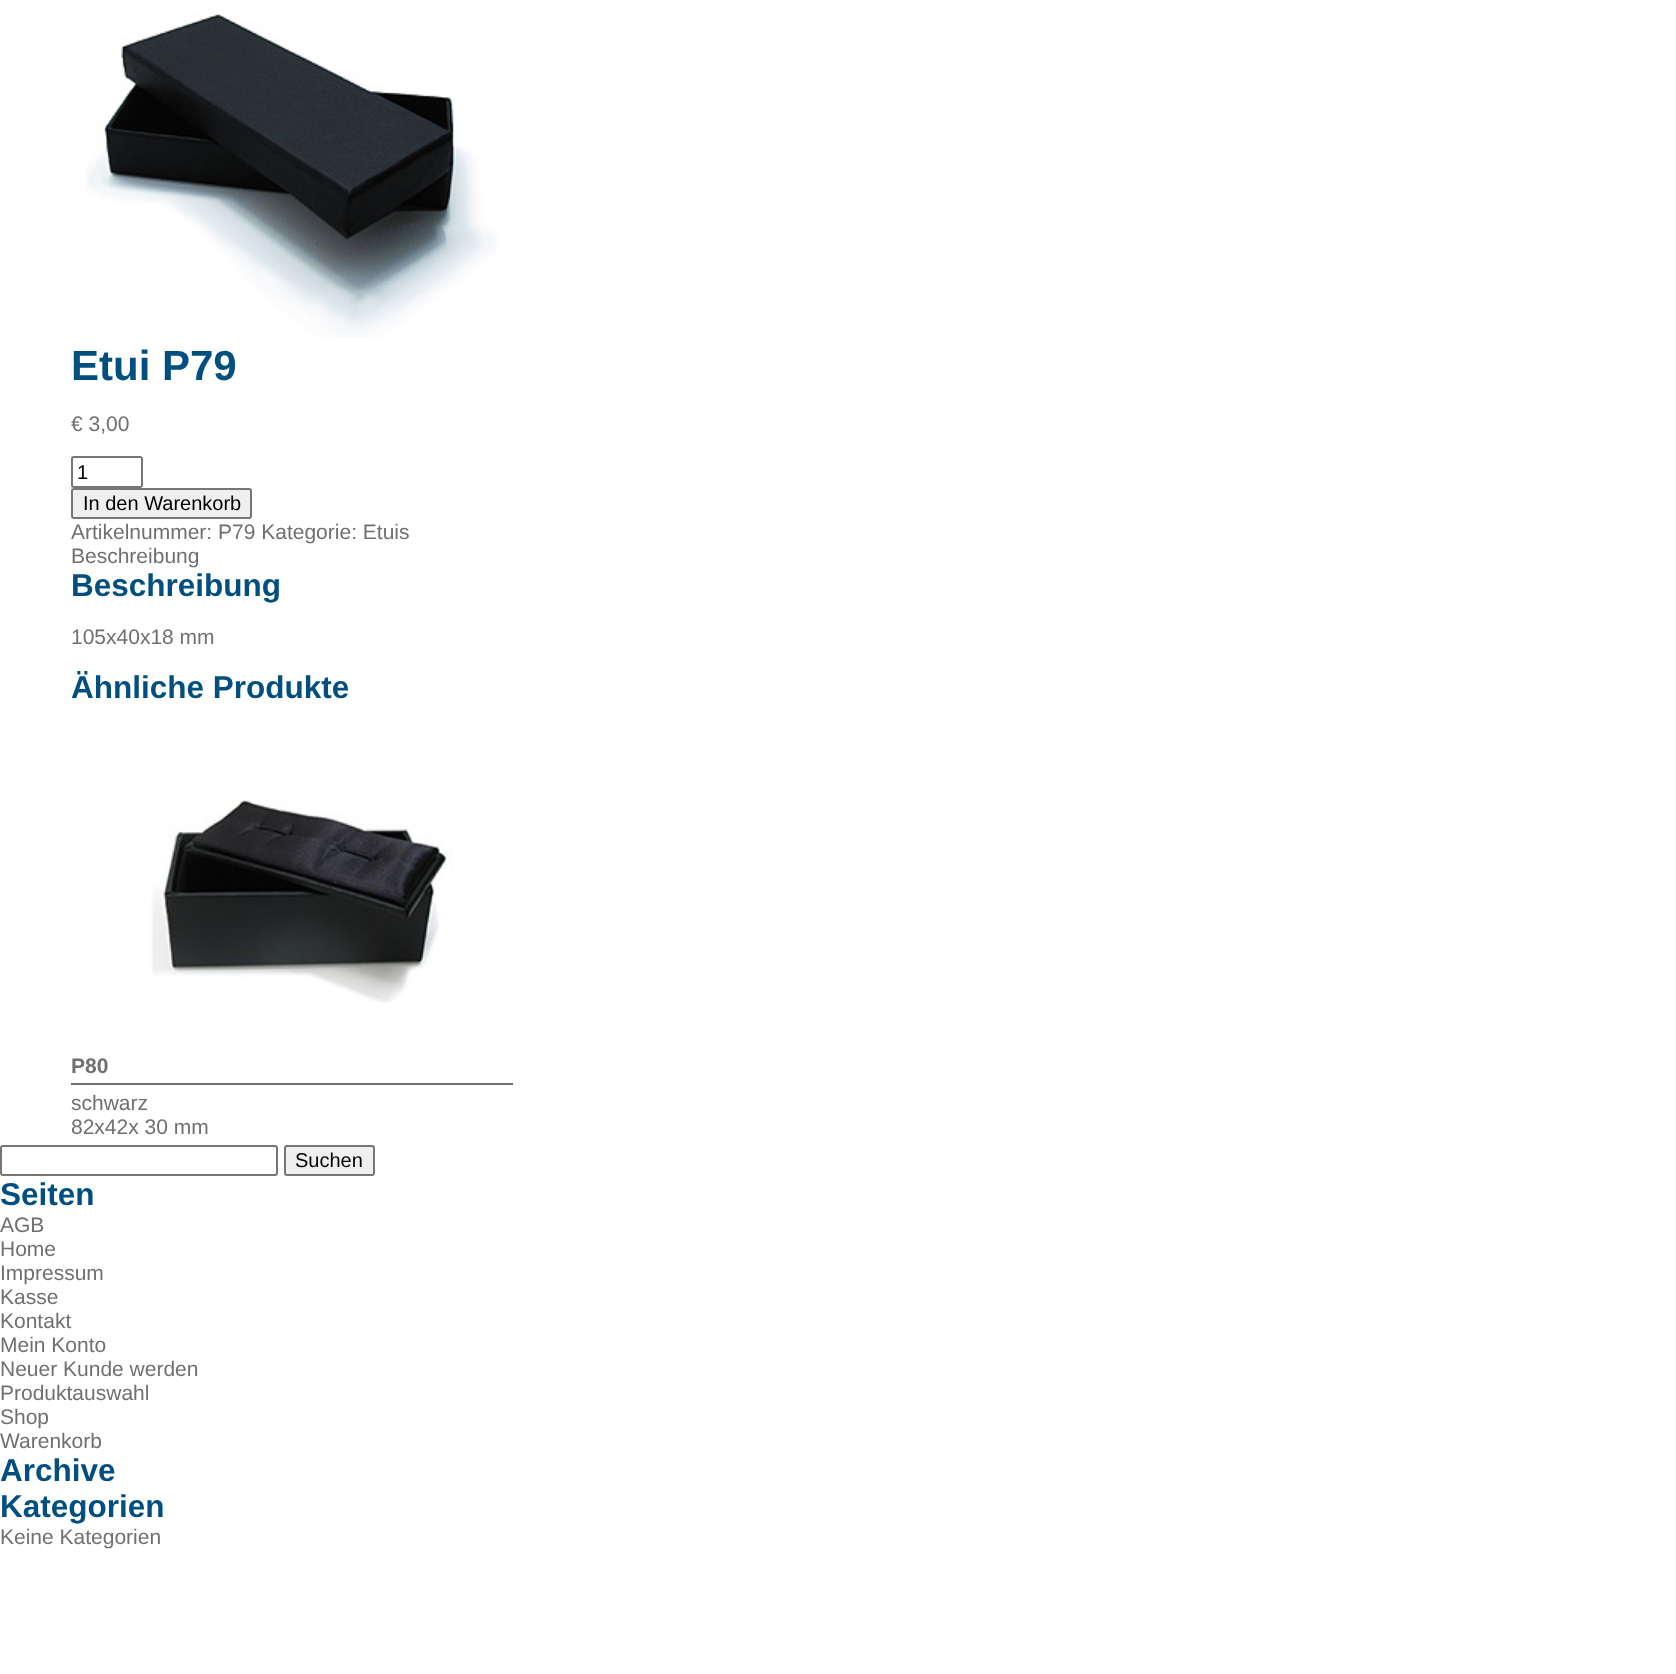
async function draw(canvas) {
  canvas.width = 1676
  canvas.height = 1674
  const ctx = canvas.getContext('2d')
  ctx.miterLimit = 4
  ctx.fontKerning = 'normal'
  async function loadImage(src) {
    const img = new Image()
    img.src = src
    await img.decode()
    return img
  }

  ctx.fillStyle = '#fff'
  ctx.fillRect(0, 0, 1676, 1674)
  ctx.drawImage(await loadImage('image0.png'), 85, 12, 412, 326)
  ctx.font = 'bold 42px Liberation Sans'
  ctx.fillStyle = '#014f81'
  ctx.fillText('Etui P79', 71, 380)
  ctx.font = '21px Liberation Sans'
  ctx.fillStyle = '#707070'
  ctx.fillText('€ 3,00', 71, 431)
  ctx.beginPath()
  ctx.roundRect(72, 457, 70, 30, 2)
  ctx.strokeStyle = '#767676'
  ctx.lineWidth = 2
  ctx.stroke()
  ctx.font = '20px Liberation Sans'
  ctx.fillStyle = '#000'
  ctx.fillText('1', 77, 479)
  ctx.fillStyle = '#efefef'
  ctx.beginPath()
  ctx.roundRect(72, 489, 179, 29, 2)
  ctx.fill()
  ctx.stroke()
  ctx.fillStyle = '#000'
  ctx.fillText('In den Warenkorb', 83, 510)
  ctx.font = '21px Liberation Sans'
  ctx.fillStyle = '#707070'
  ctx.fillText('Artikelnummer: P79 Kategorie: Etuis', 71, 539)
  ctx.fillText('Beschreibung', 71, 563)
  ctx.font = 'bold 31.5px Liberation Sans'
  ctx.fillStyle = '#014f81'
  ctx.fillText('Beschreibung', 71, 596)
  ctx.font = '21px Liberation Sans'
  ctx.fillStyle = '#707070'
  ctx.fillText('105x40x18 mm', 71, 644)
  ctx.font = 'bold 31.5px Liberation Sans'
  ctx.fillStyle = '#014f81'
  ctx.fillText('Ähnliche Produkte', 71, 698)
  ctx.drawImage(await loadImage('image1.png'), 151, 800, 302, 203)
  ctx.fillStyle = '#707070'
  ctx.fillRect(71, 1083, 442, 2)
  ctx.font = 'bold 21px Liberation Sans'
  ctx.fillText('P80', 71, 1073)
  ctx.font = '21px Liberation Sans'
  ctx.fillText('schwarz', 71, 1110)
  ctx.fillText('82x42x 30 mm', 71, 1134)
  ctx.beginPath()
  ctx.roundRect(1, 1146, 276, 29, 2)
  ctx.stroke()
  ctx.fillStyle = '#efefef'
  ctx.beginPath()
  ctx.roundRect(285, 1146, 89, 29, 2)
  ctx.fill()
  ctx.stroke()
  ctx.font = '20px Liberation Sans'
  ctx.fillStyle = '#000'
  ctx.fillText('Suchen', 295, 1167)
  ctx.font = 'bold 31.5px Liberation Sans'
  ctx.fillStyle = '#014f81'
  ctx.fillText('Seiten', 0, 1205)
  ctx.font = '21px Liberation Sans'
  ctx.fillStyle = '#707070'
  ctx.fillText('AGB', 0, 1232)
  ctx.fillText('Home', 0, 1256)
  ctx.fillText('Impressum', 0, 1280)
  ctx.fillText('Kasse', 0, 1304)
  ctx.fillText('Kontakt', 0, 1328)
  ctx.fillText('Mein Konto', 0, 1352)
  ctx.fillText('Neuer Kunde werden', 0, 1376)
  ctx.fillText('Produktauswahl', 0, 1400)
  ctx.fillText('Shop', 0, 1424)
  ctx.fillText('Warenkorb', 0, 1448)
  ctx.font = 'bold 31.5px Liberation Sans'
  ctx.fillStyle = '#014f81'
  ctx.fillText('Archive', 0, 1481)
  ctx.fillText('Kategorien', 0, 1517)
  ctx.font = '21px Liberation Sans'
  ctx.fillStyle = '#707070'
  ctx.fillText('Keine Kategorien', 0, 1544)
}

draw(document.querySelector('canvas'))
